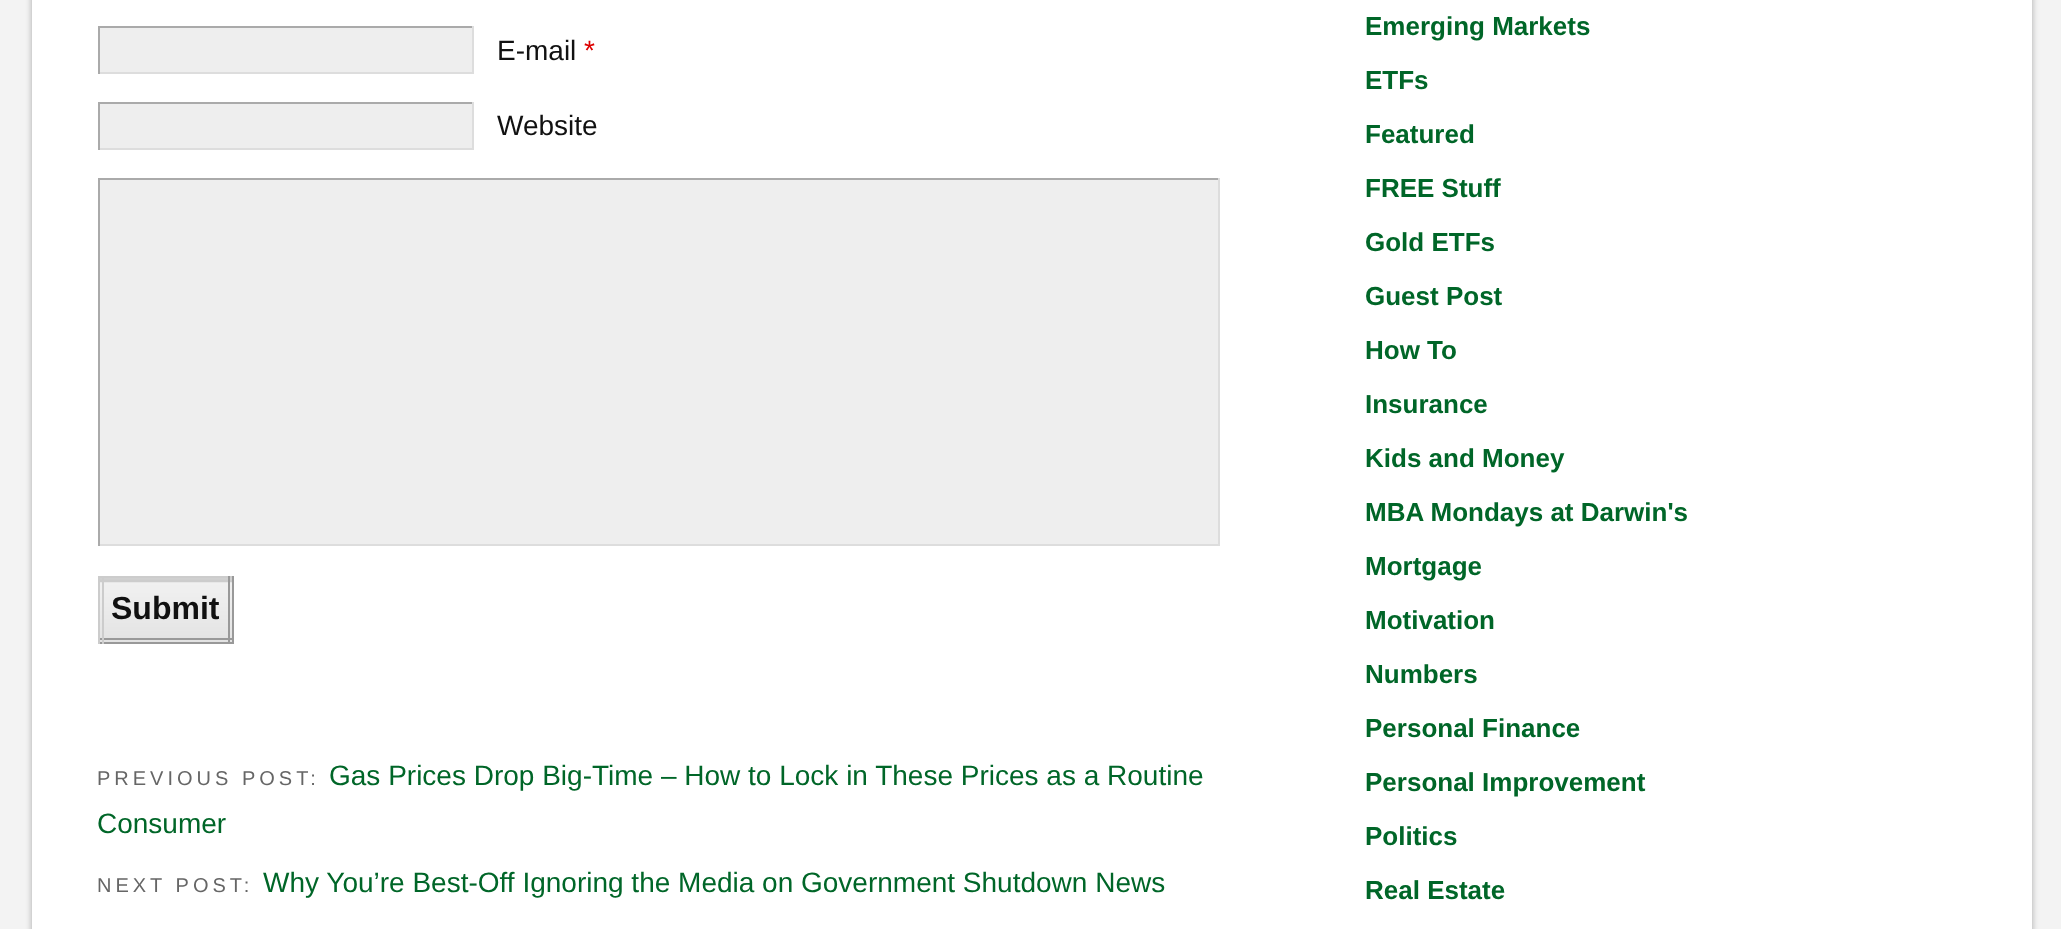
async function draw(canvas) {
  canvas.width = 2061
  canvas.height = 929
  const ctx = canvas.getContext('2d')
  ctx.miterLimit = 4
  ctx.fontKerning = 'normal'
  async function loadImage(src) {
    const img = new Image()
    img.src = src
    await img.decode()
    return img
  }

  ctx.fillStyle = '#f3f3f3'
  ctx.fillRect(0, 0, 2061, 929)
  ctx.fillStyle = '#a8a8a8'
  ctx.filter = 'blur(3px)'
  ctx.beginPath()
  ctx.rect(32, -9, 2000, 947)
  ctx.fill()
  ctx.filter = 'none'
  ctx.fillStyle = '#fff'
  ctx.fillRect(32, 0, 2000, 929)
  ctx.fillStyle = '#eee'
  ctx.fillRect(100, 28, 372, 44)
  ctx.fillStyle = '#aaa'
  ctx.fillRect(98, 26, 376, 2)
  ctx.fillStyle = '#ddd'
  ctx.fillRect(472, 26, 2, 48)
  ctx.fillRect(98, 72, 376, 2)
  ctx.fillStyle = '#aaa'
  ctx.fillRect(98, 26, 2, 48)
  ctx.font = '28px Liberation Sans'
  ctx.fillStyle = '#111'
  ctx.fillText('E-mail', 497, 60)
  ctx.fillStyle = '#d00'
  ctx.fillText('*', 584, 60)
  ctx.fillStyle = '#eee'
  ctx.fillRect(100, 104, 372, 44)
  ctx.fillStyle = '#aaa'
  ctx.fillRect(98, 102, 376, 2)
  ctx.fillStyle = '#ddd'
  ctx.fillRect(472, 102, 2, 48)
  ctx.fillRect(98, 148, 376, 2)
  ctx.fillStyle = '#aaa'
  ctx.fillRect(98, 102, 2, 48)
  ctx.fillStyle = '#111'
  ctx.fillText('Website', 497, 135)
  ctx.fillStyle = '#eee'
  ctx.fillRect(100, 180, 1118, 364)
  ctx.fillStyle = '#aaa'
  ctx.fillRect(98, 178, 1122, 2)
  ctx.fillStyle = '#ddd'
  ctx.fillRect(1218, 178, 2, 368)
  ctx.fillRect(98, 544, 1122, 2)
  ctx.fillStyle = '#aaa'
  ctx.fillRect(98, 178, 2, 368)
  ctx.drawImage(await loadImage('image0.png'), 100, 578, 132, 64)
  ctx.fillStyle = '#ccc'
  ctx.fillRect(98, 576, 136, 2)
  ctx.fillRect(98, 580, 136, 2)
  ctx.fillStyle = '#999'
  ctx.fillRect(228, 576, 2, 68)
  ctx.fillRect(232, 576, 2, 68)
  ctx.fillRect(98, 638, 136, 2)
  ctx.fillRect(98, 642, 136, 2)
  ctx.fillStyle = '#ccc'
  ctx.fillRect(98, 576, 2, 68)
  ctx.fillRect(102, 576, 2, 68)
  ctx.font = 'bold 32px Liberation Sans'
  ctx.fillStyle = '#111'
  ctx.fillText('Submit', 111, 619)
  ctx.letterSpacing = '4px'
  ctx.font = '20px Liberation Sans'
  ctx.fillStyle = '#666'
  ctx.fillText('PREVIOUS POST:', 97, 785)
  ctx.letterSpacing = '0px'
  ctx.font = '28px Liberation Sans'
  ctx.fillStyle = '#006628'
  ctx.fillText('Gas Prices Drop Big-Time – How to Lock in These Prices as a Routine', 329, 785)
  ctx.fillText('Consumer', 97, 833)
  ctx.letterSpacing = '4px'
  ctx.font = '20px Liberation Sans'
  ctx.fillStyle = '#666'
  ctx.fillText('NEXT POST:', 97, 892)
  ctx.letterSpacing = '0px'
  ctx.font = '28px Liberation Sans'
  ctx.fillStyle = '#006628'
  ctx.fillText('Why You’re Best-Off Ignoring the Media on Government Shutdown News', 263, 892)
  ctx.font = 'bold 26px Liberation Sans'
  ctx.fillText('Emerging Markets', 1365, 35)
  ctx.fillText('ETFs', 1365, 89)
  ctx.fillText('Featured', 1365, 143)
  ctx.fillText('FREE Stuff', 1365, 197)
  ctx.fillText('Gold ETFs', 1365, 251)
  ctx.fillText('Guest Post', 1365, 305)
  ctx.fillText('How To', 1365, 359)
  ctx.fillText('Insurance', 1365, 413)
  ctx.fillText('Kids and Money', 1365, 467)
  ctx.fillText('MBA Mondays at Darwin\'s', 1365, 521)
  ctx.fillText('Mortgage', 1365, 575)
  ctx.fillText('Motivation', 1365, 629)
  ctx.fillText('Numbers', 1365, 683)
  ctx.fillText('Personal Finance', 1365, 737)
  ctx.fillText('Personal Improvement', 1365, 791)
  ctx.fillText('Politics', 1365, 845)
  ctx.fillText('Real Estate', 1365, 899)
}

draw(document.querySelector('canvas'))
